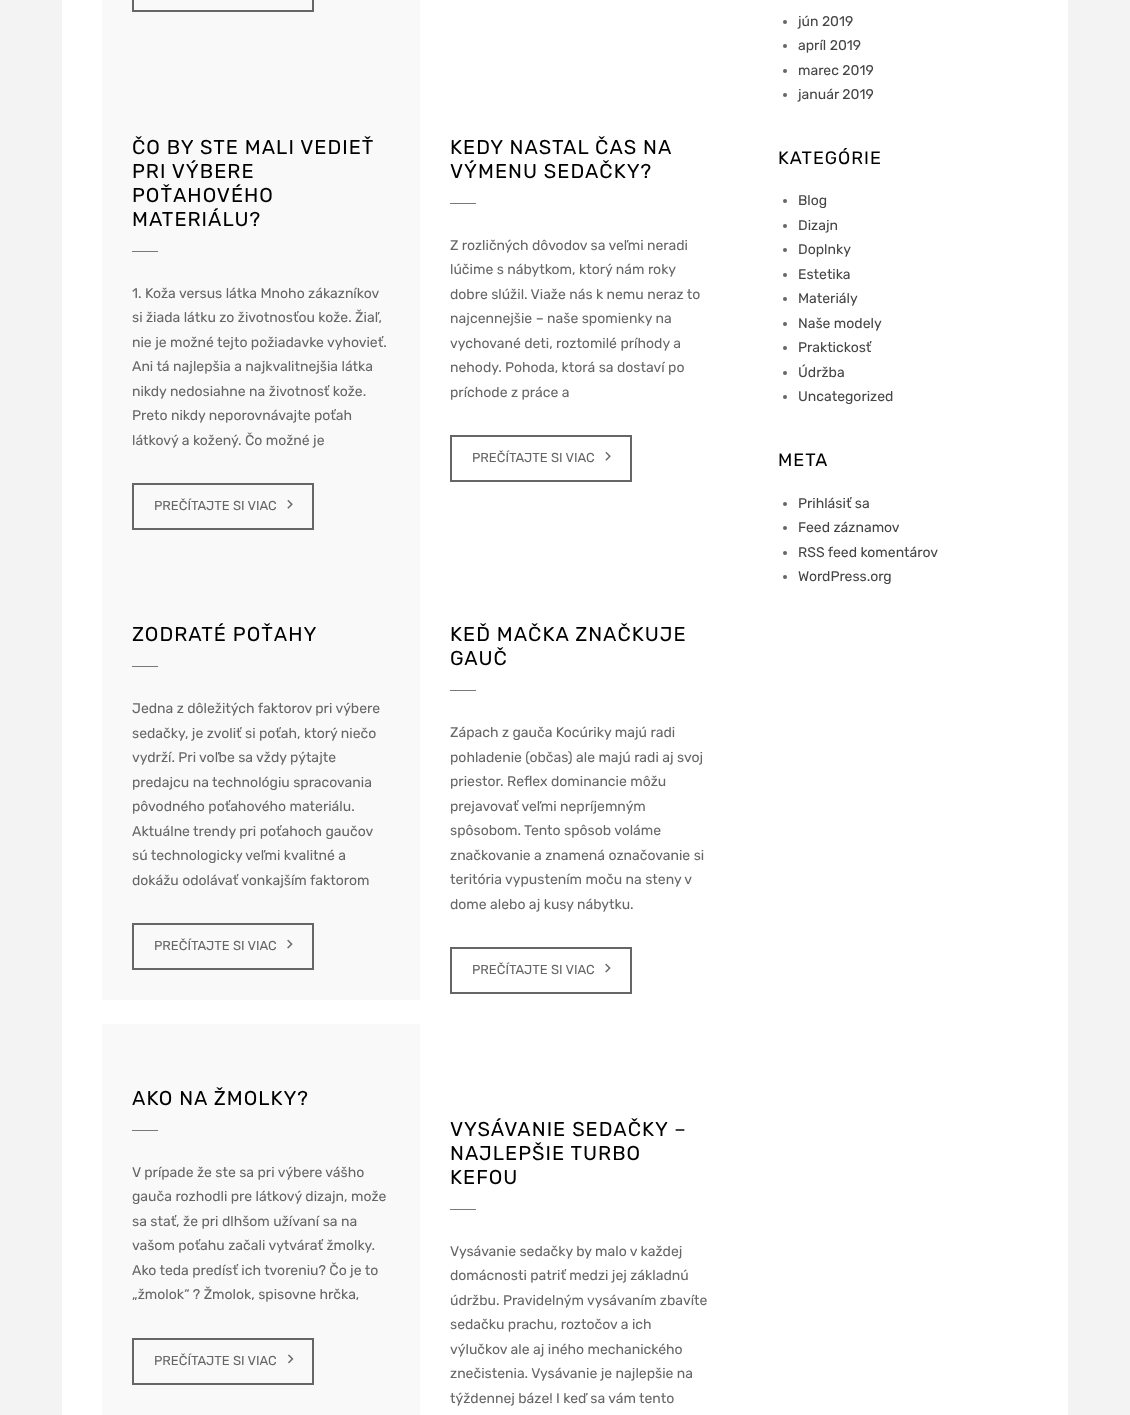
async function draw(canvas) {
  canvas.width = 1130
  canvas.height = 1415
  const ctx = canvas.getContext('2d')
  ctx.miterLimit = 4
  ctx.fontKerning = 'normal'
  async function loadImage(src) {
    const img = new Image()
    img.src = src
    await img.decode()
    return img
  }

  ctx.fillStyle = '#f3f3f3'
  ctx.fillRect(0, 0, 1130, 1415)
  ctx.fillStyle = '#fff'
  ctx.fillRect(62, 0, 1006, 1415)
  ctx.fillStyle = '#f9f9f9'
  ctx.fillRect(102, 0, 318, 1000)
  ctx.strokeStyle = '#666'
  ctx.lineWidth = 2
  ctx.strokeRect(133, -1, 180, 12)
  ctx.letterSpacing = '1px'
  ctx.font = '300 20px Rubik'
  ctx.fillStyle = '#000'
  ctx.fillText('ČO BY STE MALI VEDIEŤ', 132, 154)
  ctx.fillText('PRI VÝBERE', 132, 178)
  ctx.fillText('POŤAHOVÉHO', 132, 202)
  ctx.fillText('MATERIÁLU?', 132, 226)
  ctx.fillStyle = '#797979'
  ctx.fillRect(132, 251, 26, 1)
  ctx.letterSpacing = '0px'
  ctx.font = '300 14px Rubik'
  ctx.fillStyle = '#666'
  ctx.fillText('1. Koža versus látka Mnoho zákazníkov', 132, 298)
  ctx.fillText('si žiada látku zo životnosťou kože. Žiaľ,', 132, 322)
  ctx.fillText('nie je možné tejto požiadavke vyhovieť.', 132, 347)
  ctx.fillText('Ani tá najlepšia a najkvalitnejšia látka', 132, 371)
  ctx.fillText('nikdy nedosiahne na životnosť kože.', 132, 396)
  ctx.fillText('Preto nikdy neporovnávajte poťah', 132, 420)
  ctx.fillText('látkový a kožený. Čo možné je', 132, 445)
  ctx.strokeRect(133, 484, 180, 45)
  ctx.font = '300 13px Rubik'
  ctx.fillText('PREČÍTAJTE SI VIAC', 154, 510)
  ctx.drawImage(await loadImage('image0.png'), 287, 499, 6, 10)
  ctx.letterSpacing = '1px'
  ctx.font = '300 20px Rubik'
  ctx.fillStyle = '#000'
  ctx.fillText('KEDY NASTAL ČAS NA', 450, 154)
  ctx.fillText('VÝMENU SEDAČKY?', 450, 178)
  ctx.fillStyle = '#797979'
  ctx.fillRect(450, 203, 26, 1)
  ctx.letterSpacing = '0px'
  ctx.font = '300 14px Rubik'
  ctx.fillStyle = '#666'
  ctx.fillText('Z rozličných dôvodov sa veľmi neradi', 450, 250)
  ctx.fillText('lúčime s nábytkom, ktorý nám roky', 450, 274)
  ctx.fillText('dobre slúžil. Viaže nás k nemu neraz to', 450, 299)
  ctx.fillText('najcennejšie – naše spomienky na', 450, 323)
  ctx.fillText('vychované deti, roztomilé príhody a', 450, 348)
  ctx.fillText('nehody. Pohoda, ktorá sa dostaví po', 450, 372)
  ctx.fillText('príchode z práce a', 450, 397)
  ctx.strokeRect(451, 436, 180, 45)
  ctx.font = '300 13px Rubik'
  ctx.fillText('PREČÍTAJTE SI VIAC', 472, 462)
  ctx.drawImage(await loadImage('image1.png'), 605, 451, 6, 10)
  ctx.letterSpacing = '1px'
  ctx.font = '300 20px Rubik'
  ctx.fillStyle = '#000'
  ctx.fillText('ZODRATÉ POŤAHY', 132, 641)
  ctx.fillStyle = '#797979'
  ctx.fillRect(132, 666, 26, 1)
  ctx.letterSpacing = '0px'
  ctx.font = '300 14px Rubik'
  ctx.fillStyle = '#666'
  ctx.fillText('Jedna z dôležitých faktorov pri výbere', 132, 713)
  ctx.fillText('sedačky, je zvoliť si poťah, ktorý niečo', 132, 738)
  ctx.fillText('vydrží. Pri voľbe sa vždy pýtajte', 132, 762)
  ctx.fillText('predajcu na technológiu spracovania', 132, 787)
  ctx.fillText('pôvodného poťahového materiálu.', 132, 811)
  ctx.fillText('Aktuálne trendy pri poťahoch gaučov', 132, 836)
  ctx.fillText('sú technologicky veľmi kvalitné a', 132, 860)
  ctx.fillText('dokážu odolávať vonkajším faktorom', 132, 885)
  ctx.strokeRect(133, 924, 180, 45)
  ctx.font = '300 13px Rubik'
  ctx.fillText('PREČÍTAJTE SI VIAC', 154, 950)
  ctx.drawImage(await loadImage('image2.png'), 287, 939, 6, 10)
  ctx.letterSpacing = '1px'
  ctx.font = '300 20px Rubik'
  ctx.fillStyle = '#000'
  ctx.fillText('KEĎ MAČKA ZNAČKUJE', 450, 641)
  ctx.fillText('GAUČ', 450, 665)
  ctx.fillStyle = '#797979'
  ctx.fillRect(450, 690, 26, 1)
  ctx.letterSpacing = '0px'
  ctx.font = '300 14px Rubik'
  ctx.fillStyle = '#666'
  ctx.fillText('Zápach z gauča Kocúriky majú radi', 450, 737)
  ctx.fillText('pohladenie (občas) ale majú radi aj svoj', 450, 762)
  ctx.fillText('priestor. Reflex dominancie môžu', 450, 786)
  ctx.fillText('prejavovať veľmi nepríjemným', 450, 811)
  ctx.fillText('spôsobom. Tento spôsob voláme', 450, 835)
  ctx.fillText('značkovanie a znamená označovanie si', 450, 860)
  ctx.fillText('teritória vypustením moču na steny v', 450, 884)
  ctx.fillText('dome alebo aj kusy nábytku.', 450, 909)
  ctx.strokeRect(451, 948, 180, 45)
  ctx.font = '300 13px Rubik'
  ctx.fillText('PREČÍTAJTE SI VIAC', 472, 974)
  ctx.drawImage(await loadImage('image3.png'), 605, 963, 6, 10)
  ctx.fillStyle = '#f9f9f9'
  ctx.fillRect(102, 1024, 318, 391)
  ctx.letterSpacing = '1px'
  ctx.font = '300 20px Rubik'
  ctx.fillStyle = '#000'
  ctx.fillText('AKO NA ŽMOLKY?', 132, 1105)
  ctx.fillStyle = '#797979'
  ctx.fillRect(132, 1130, 26, 1)
  ctx.letterSpacing = '0px'
  ctx.font = '300 14px Rubik'
  ctx.fillStyle = '#666'
  ctx.fillText('V prípade že ste sa pri výbere vášho', 132, 1177)
  ctx.fillText('gauča rozhodli pre látkový dizajn, može', 132, 1201)
  ctx.fillText('sa stať, že pri dlhšom užívaní sa na', 132, 1226)
  ctx.fillText('vašom poťahu začali vytvárať žmolky.', 132, 1250)
  ctx.fillText('Ako teda predísť ich tvoreniu? Čo je to', 132, 1275)
  ctx.fillText('„žmolok“ ? Žmolok, spisovne hrčka,', 132, 1299)
  ctx.strokeRect(133, 1339, 180, 45)
  ctx.font = '300 13px Rubik'
  ctx.fillText('PREČÍTAJTE SI VIAC', 154, 1365)
  ctx.drawImage(await loadImage('image4.png'), 288, 1354, 6, 10)
  ctx.letterSpacing = '1px'
  ctx.font = '300 20px Rubik'
  ctx.fillStyle = '#000'
  ctx.fillText('VYSÁVANIE SEDAČKY –', 450, 1136)
  ctx.fillText('NAJLEPŠIE TURBO', 450, 1160)
  ctx.fillText('KEFOU', 450, 1184)
  ctx.fillStyle = '#797979'
  ctx.fillRect(450, 1209, 26, 1)
  ctx.letterSpacing = '0px'
  ctx.font = '300 14px Rubik'
  ctx.fillStyle = '#666'
  ctx.fillText('Vysávanie sedačky by malo v každej', 450, 1256)
  ctx.fillText('domácnosti patriť medzi jej základnú', 450, 1280)
  ctx.fillText('údržbu. Pravidelným vysávaním zbavíte', 450, 1305)
  ctx.fillText('sedačku prachu, roztočov a ich', 450, 1329)
  ctx.fillText('výlučkov ale aj iného mechanického', 450, 1354)
  ctx.fillText('znečistenia. Vysávanie je najlepšie na', 450, 1378)
  ctx.fillText('týždennej báze! I keď sa vám tento', 450, 1403)
  ctx.beginPath()
  ctx.arc(785, 22, 2, 0, 2 * Math.PI)
  ctx.fill()
  ctx.fillStyle = '#444'
  ctx.fillText('jún 2019', 798, 26)
  ctx.fillStyle = '#666'
  ctx.beginPath()
  ctx.arc(785, 46, 2, 0, 2 * Math.PI)
  ctx.fill()
  ctx.fillStyle = '#444'
  ctx.fillText('apríl 2019', 798, 50)
  ctx.fillStyle = '#666'
  ctx.beginPath()
  ctx.arc(785, 71, 2, 0, 2 * Math.PI)
  ctx.fill()
  ctx.fillStyle = '#444'
  ctx.fillText('marec 2019', 798, 75)
  ctx.fillStyle = '#666'
  ctx.beginPath()
  ctx.arc(785, 95, 2, 0, 2 * Math.PI)
  ctx.fill()
  ctx.fillStyle = '#444'
  ctx.fillText('január 2019', 798, 99)
  ctx.letterSpacing = '1px'
  ctx.font = '300 18px Rubik'
  ctx.fillStyle = '#000'
  ctx.fillText('KATEGÓRIE', 778, 164)
  ctx.fillStyle = '#666'
  ctx.beginPath()
  ctx.arc(785, 201, 2, 0, 2 * Math.PI)
  ctx.fill()
  ctx.letterSpacing = '0px'
  ctx.font = '300 14px Rubik'
  ctx.fillStyle = '#444'
  ctx.fillText('Blog', 798, 205)
  ctx.fillStyle = '#666'
  ctx.beginPath()
  ctx.arc(785, 226, 2, 0, 2 * Math.PI)
  ctx.fill()
  ctx.fillStyle = '#444'
  ctx.fillText('Dizajn', 798, 230)
  ctx.fillStyle = '#666'
  ctx.beginPath()
  ctx.arc(785, 250, 2, 0, 2 * Math.PI)
  ctx.fill()
  ctx.fillStyle = '#444'
  ctx.fillText('Doplnky', 798, 254)
  ctx.fillStyle = '#666'
  ctx.beginPath()
  ctx.arc(785, 275, 2, 0, 2 * Math.PI)
  ctx.fill()
  ctx.fillStyle = '#444'
  ctx.fillText('Estetika', 798, 279)
  ctx.fillStyle = '#666'
  ctx.beginPath()
  ctx.arc(785, 299, 2, 0, 2 * Math.PI)
  ctx.fill()
  ctx.fillStyle = '#444'
  ctx.fillText('Materiály', 798, 303)
  ctx.fillStyle = '#666'
  ctx.beginPath()
  ctx.arc(785, 324, 2, 0, 2 * Math.PI)
  ctx.fill()
  ctx.fillStyle = '#444'
  ctx.fillText('Naše modely', 798, 328)
  ctx.fillStyle = '#666'
  ctx.beginPath()
  ctx.arc(785, 348, 2, 0, 2 * Math.PI)
  ctx.fill()
  ctx.fillStyle = '#444'
  ctx.fillText('Praktickosť', 798, 352)
  ctx.fillStyle = '#666'
  ctx.beginPath()
  ctx.arc(785, 373, 2, 0, 2 * Math.PI)
  ctx.fill()
  ctx.fillStyle = '#444'
  ctx.fillText('Údržba', 798, 377)
  ctx.fillStyle = '#666'
  ctx.beginPath()
  ctx.arc(785, 397, 2, 0, 2 * Math.PI)
  ctx.fill()
  ctx.fillStyle = '#444'
  ctx.fillText('Uncategorized', 798, 401)
  ctx.letterSpacing = '1px'
  ctx.font = '300 18px Rubik'
  ctx.fillStyle = '#000'
  ctx.fillText('META', 778, 466)
  ctx.fillStyle = '#666'
  ctx.beginPath()
  ctx.arc(785, 504, 2, 0, 2 * Math.PI)
  ctx.fill()
  ctx.letterSpacing = '0px'
  ctx.font = '300 14px Rubik'
  ctx.fillStyle = '#444'
  ctx.fillText('Prihlásiť sa', 798, 508)
  ctx.fillStyle = '#666'
  ctx.beginPath()
  ctx.arc(785, 528, 2, 0, 2 * Math.PI)
  ctx.fill()
  ctx.fillStyle = '#444'
  ctx.fillText('Feed záznamov', 798, 532)
  ctx.fillStyle = '#666'
  ctx.beginPath()
  ctx.arc(785, 553, 2, 0, 2 * Math.PI)
  ctx.fill()
  ctx.fillStyle = '#444'
  ctx.fillText('RSS feed komentárov', 798, 557)
  ctx.fillStyle = '#666'
  ctx.beginPath()
  ctx.arc(785, 577, 2, 0, 2 * Math.PI)
  ctx.fill()
  ctx.fillStyle = '#444'
  ctx.fillText('WordPress.org', 798, 581)
}

draw(document.querySelector('canvas'))
